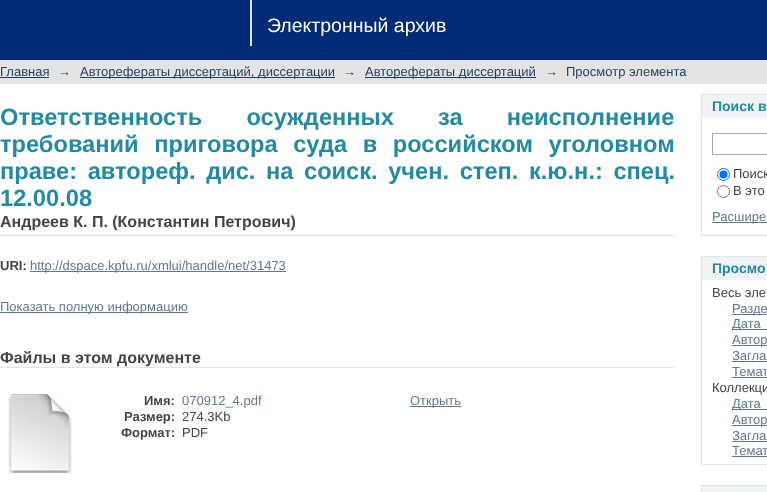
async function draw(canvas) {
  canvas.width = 767
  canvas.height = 492
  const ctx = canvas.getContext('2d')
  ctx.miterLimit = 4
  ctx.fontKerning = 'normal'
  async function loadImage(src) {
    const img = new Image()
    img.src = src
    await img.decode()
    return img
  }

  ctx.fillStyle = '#fff'
  ctx.fillRect(0, 0, 767, 492)
  ctx.fillStyle = '#012a77'
  ctx.fillRect(0, 0, 767, 60)
  ctx.fillStyle = '#e3e3e3'
  ctx.fillRect(250, 0, 2, 46)
  ctx.font = '19.5px Liberation Sans'
  ctx.fillStyle = '#fff'
  ctx.fillText('Электронный архив', 267, 32)
  ctx.fillStyle = '#e3e3e3'
  ctx.fillRect(0, 60, 767, 24)
  ctx.font = '13px Liberation Sans'
  ctx.fillStyle = '#1f3f5e'
  ctx.fillText('Главная', 0, 76)
  ctx.fillRect(0, 77, 49, 1)
  ctx.fillText('→', 58, 76)
  ctx.fillRect(80, 77, 255, 1)
  ctx.fillText('Авторефераты диссертаций, диссертации', 80, 76)
  ctx.fillText('→', 343, 76)
  ctx.fillRect(365, 77, 171, 1)
  ctx.fillText('Авторефераты диссертаций', 365, 76)
  ctx.fillText('→', 545, 76)
  ctx.fillText('Просмотр элемента', 566, 76)
  ctx.wordSpacing = '37.5px'
  ctx.font = 'bold 23.65px Liberation Sans'
  ctx.fillStyle = '#228aa2'
  ctx.fillText('Ответственность осужденных за неисполнение', 0, 125)
  ctx.wordSpacing = '9px'
  ctx.fillText('требований приговора суда в российском уголовном', 0, 152)
  ctx.wordSpacing = '4px'
  ctx.fillText('праве: автореф. дис. на соиск. учен. степ. к.ю.н.: спец.', 0, 179)
  ctx.wordSpacing = '0px'
  ctx.fillText('12.00.08', 0, 206)
  ctx.fillStyle = '#d8e8eb'
  ctx.fillRect(0, 235, 675, 1)
  ctx.font = 'bold 16px Liberation Sans'
  ctx.fillStyle = '#444'
  ctx.fillText('Андреев К. П. (Константин Петрович)', 0, 227)
  ctx.font = 'bold 13px Liberation Sans'
  ctx.fillText('URI:', 0, 270)
  ctx.fillStyle = '#607890'
  ctx.fillRect(30, 271, 256, 1)
  ctx.font = '13px Liberation Sans'
  ctx.fillText('http://dspace.kpfu.ru/xmlui/handle/net/31473', 30, 270)
  ctx.fillRect(0, 312, 188, 1)
  ctx.fillText('Показать полную информацию', 0, 311)
  ctx.fillStyle = '#d8e8eb'
  ctx.fillRect(0, 367, 675, 1)
  ctx.font = 'bold 16px Liberation Sans'
  ctx.fillStyle = '#444'
  ctx.fillText('Файлы в этом документе', 0, 363)
  ctx.drawImage(await loadImage('image0.png'), 8, 394, 64, 79)
  ctx.font = 'bold 13px Liberation Sans'
  ctx.fillText('Имя:', 144, 405)
  ctx.font = '13px Liberation Sans'
  ctx.fillStyle = '#607890'
  ctx.fillText('070912_4.pdf', 182, 405)
  ctx.font = 'bold 13px Liberation Sans'
  ctx.fillStyle = '#444'
  ctx.fillText('Размер:', 124, 421)
  ctx.font = '13px Liberation Sans'
  ctx.fillText('274.3Kb', 182, 421)
  ctx.font = 'bold 13px Liberation Sans'
  ctx.fillText('Формат:', 121, 437)
  ctx.font = '13px Liberation Sans'
  ctx.fillText('PDF', 182, 437)
  ctx.fillStyle = '#607890'
  ctx.fillRect(410, 406, 51, 1)
  ctx.fillText('Открыть', 410, 405)
  ctx.fillStyle = '#f0f2f5'
  ctx.fillRect(702, 95, 65, 23)
  ctx.fillStyle = '#d8e8eb'
  ctx.fillRect(701, 94, 66, 1)
  ctx.fillRect(701, 94, 1, 24)
  ctx.font = 'bold 14px Liberation Sans'
  ctx.fillStyle = '#228aa2'
  ctx.fillText('Поиск в', 712, 111)
  ctx.fillStyle = '#d8e8eb'
  ctx.fillRect(701, 235, 66, 1)
  ctx.fillRect(701, 118, 1, 118)
  ctx.strokeStyle = '#aaa'
  ctx.strokeRect(712.5, 133.5, 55, 21)
  ctx.beginPath()
  ctx.arc(723.5, 174.5, 6, 0, 2 * Math.PI)
  ctx.strokeStyle = '#0075ff'
  ctx.stroke()
  ctx.fillStyle = '#0075ff'
  ctx.beginPath()
  ctx.arc(723.5, 174.5, 4, 0, 2 * Math.PI)
  ctx.fill()
  ctx.font = '13px Liberation Sans'
  ctx.fillStyle = '#444'
  ctx.fillText('Поиск', 733, 178)
  ctx.beginPath()
  ctx.arc(723.5, 191.5, 6, 0, 2 * Math.PI)
  ctx.strokeStyle = '#767676'
  ctx.stroke()
  ctx.fillText('В это', 733, 195)
  ctx.fillStyle = '#607890'
  ctx.fillRect(712, 222, 55, 1)
  ctx.fillText('Расшире', 712, 221)
  ctx.fillStyle = '#f0f2f5'
  ctx.fillRect(702, 257, 65, 23)
  ctx.fillStyle = '#d8e8eb'
  ctx.fillRect(701, 256, 66, 1)
  ctx.fillRect(701, 256, 1, 24)
  ctx.font = 'bold 14px Liberation Sans'
  ctx.fillStyle = '#228aa2'
  ctx.fillText('Просмо', 712, 273)
  ctx.fillStyle = '#d8e8eb'
  ctx.fillRect(701, 464, 66, 1)
  ctx.fillRect(701, 280, 1, 185)
  ctx.font = '13px Liberation Sans'
  ctx.fillStyle = '#444'
  ctx.fillText('Весь эле', 712, 297)
  ctx.fillStyle = '#607890'
  ctx.fillRect(732, 314, 35, 1)
  ctx.fillText('Разде', 732, 313)
  ctx.fillRect(732, 329, 35, 1)
  ctx.fillText('Дата', 732, 328)
  ctx.fillRect(732, 345, 35, 1)
  ctx.fillText('Автор', 732, 344)
  ctx.fillText('Загла', 732, 360)
  ctx.fillRect(732, 361, 35, 1)
  ctx.fillText('Темат', 732, 376)
  ctx.fillRect(732, 377, 35, 1)
  ctx.fillStyle = '#444'
  ctx.fillText('Коллекци', 712, 392)
  ctx.fillStyle = '#607890'
  ctx.fillRect(732, 409, 35, 1)
  ctx.fillText('Дата', 732, 408)
  ctx.fillRect(732, 425, 35, 1)
  ctx.fillText('Автор', 732, 424)
  ctx.fillText('Загла', 732, 440)
  ctx.fillRect(732, 441, 35, 1)
  ctx.fillText('Темат', 732, 455)
  ctx.fillRect(732, 456, 35, 1)
  ctx.fillStyle = '#f0f2f5'
  ctx.fillRect(701, 486, 66, 6)
  ctx.fillStyle = '#d8e8eb'
  ctx.fillRect(701, 485, 66, 1)
  ctx.fillRect(701, 485, 1, 7)
}

draw(document.querySelector('canvas'))
